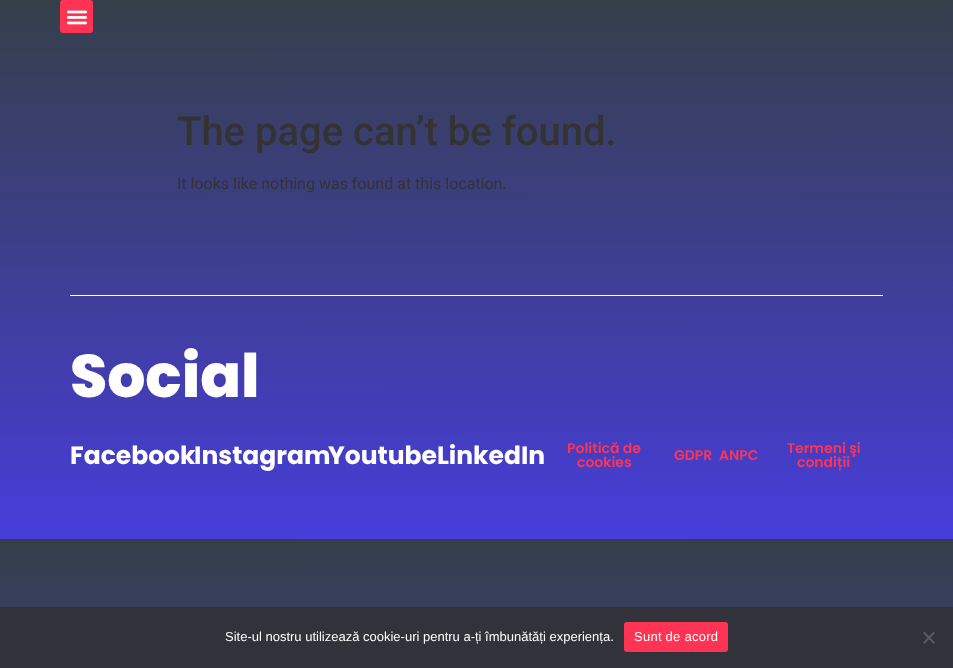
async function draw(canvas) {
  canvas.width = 953
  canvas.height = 668
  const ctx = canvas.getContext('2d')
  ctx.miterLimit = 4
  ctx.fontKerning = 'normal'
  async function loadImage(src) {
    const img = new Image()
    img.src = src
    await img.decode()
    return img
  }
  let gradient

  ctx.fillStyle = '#fff'
  ctx.fillRect(0, 0, 953, 668)
  gradient = ctx.createLinearGradient(476, 0, 477, 539)
  gradient.addColorStop(0, '#353f4a')
  gradient.addColorStop(1, '#473ddb')
  ctx.fillStyle = gradient
  ctx.fillRect(0, 0, 953, 539)
  gradient = ctx.createLinearGradient(476, 539, 477, 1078)
  gradient.addColorStop(0, '#353f4a')
  gradient.addColorStop(1, '#473ddb')
  ctx.fillStyle = gradient
  ctx.fillRect(0, 539, 953, 68)
  ctx.fillStyle = '#ff3454'
  ctx.beginPath()
  ctx.roundRect(60, 0, 33, 33, 3)
  ctx.fill()
  ctx.drawImage(await loadImage('image0.png'), 66, 10, 22, 15)
  ctx.font = '500 40px Roboto'
  ctx.fillStyle = '#333'
  ctx.fillText('The page can’t be found.', 177, 145)
  ctx.font = '16px Roboto'
  ctx.fillText('It looks like nothing was found at this location.', 177, 189)
  ctx.fillStyle = '#fff'
  ctx.fillRect(70, 295, 813, 1)
  ctx.font = '800 60px Poppins'
  ctx.fillText('Social', 70, 397)
  ctx.font = 'bold 25px Poppins'
  ctx.fillText('Facebook', 70, 464)
  ctx.fillText('Instagram', 194, 464)
  ctx.fillText('YoutubeLinkedIn', 328, 464)
  ctx.font = '600 14px Poppins'
  ctx.fillStyle = '#ff3454'
  ctx.fillText('Politică de', 567, 453)
  ctx.fillText('cookies', 577, 467)
  ctx.fillText('GDPR', 674, 460)
  ctx.fillText('ANPC', 719, 460)
  ctx.fillText('Termeni şi', 787, 453)
  ctx.fillText('condiții', 797, 467)
  ctx.fillStyle = '#32323a'
  ctx.fillRect(0, 607, 953, 61)
  ctx.font = '13px Liberation Sans'
  ctx.fillStyle = '#fff'
  ctx.fillText('Site-ul nostru utilizează cookie-uri pentru a-ți îmbunătăți experiența.', 225, 641)
  ctx.fillStyle = '#ff3454'
  ctx.beginPath()
  ctx.roundRect(624, 622, 104, 30, 3)
  ctx.fill()
  ctx.letterSpacing = '0.25px'
  ctx.fillStyle = '#fff'
  ctx.fillText('Sunt de acord', 634, 641)
  ctx.fillStyle = '#59595d'
  ctx.beginPath()
  ctx.moveTo(933.5, 631.5)
  ctx.lineTo(935, 633)
  ctx.lineTo(924.5, 644)
  ctx.lineTo(923, 642.5)
  ctx.closePath()
  ctx.fill()
  ctx.beginPath()
  ctx.moveTo(923, 633)
  ctx.lineTo(924.5, 631.5)
  ctx.lineTo(935, 642.5)
  ctx.lineTo(933.5, 644)
  ctx.closePath()
  ctx.fill()
}

draw(document.querySelector('canvas'))
